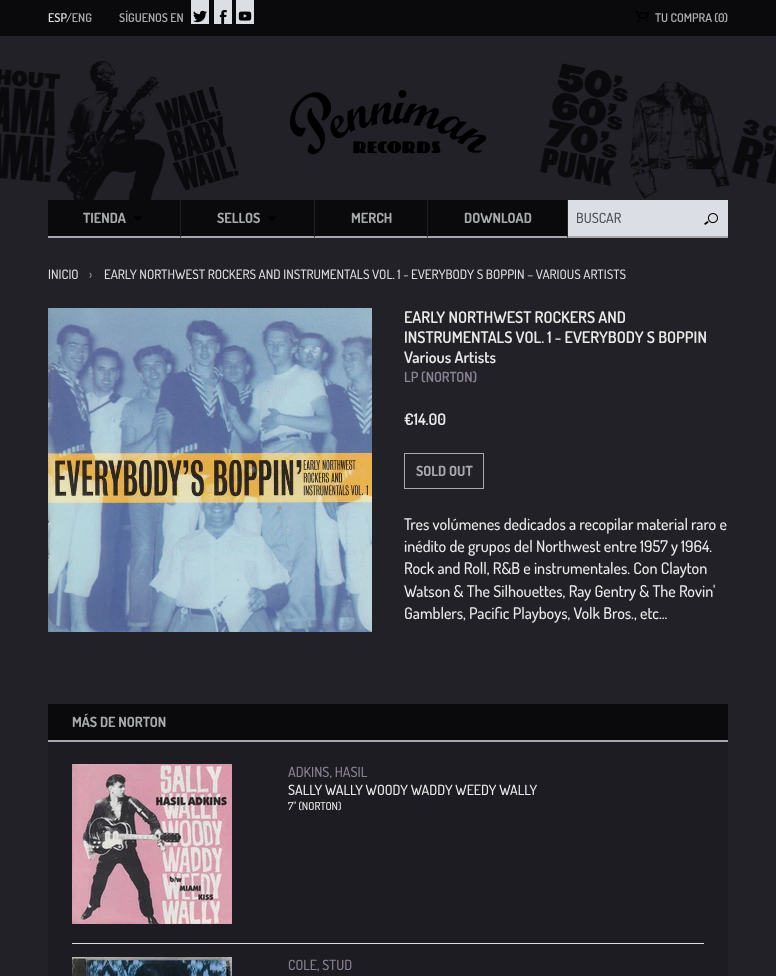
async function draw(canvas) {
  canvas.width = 776
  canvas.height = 976
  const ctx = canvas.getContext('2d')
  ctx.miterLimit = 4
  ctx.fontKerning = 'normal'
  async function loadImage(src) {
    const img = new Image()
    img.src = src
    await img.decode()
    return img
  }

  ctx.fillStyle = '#222128'
  ctx.fillRect(0, 0, 776, 976)
  ctx.fillStyle = '#0a0a0c'
  ctx.fillRect(0, 0, 776, 36)
  ctx.font = '600 12px Dosis'
  ctx.fillStyle = '#dcddde'
  ctx.fillText('ESP', 48, 22)
  ctx.fillStyle = '#a8aaad'
  ctx.fillText('/ENG', 66, 22)
  ctx.fillText('SÍGUENOS EN', 119, 22)
  ctx.fillStyle = '#dcdee6'
  ctx.fillRect(191, 0, 18, 24)
  ctx.drawImage(await loadImage('image0.png'), 193, 10, 14, 13)
  ctx.fillRect(214, 0, 18, 24)
  ctx.drawImage(await loadImage('image1.png'), 219, 10, 8, 14)
  ctx.fillRect(236, 0, 18, 24)
  ctx.drawImage(await loadImage('image2.png'), 238, 11, 14, 10)
  ctx.drawImage(await loadImage('image3.png'), 635, 11, 14, 11)
  ctx.fillStyle = '#a8aaad'
  ctx.fillText('TU COMPRA (0', 655, 22)
  ctx.fillText(')', 724, 22)
  ctx.drawImage(await loadImage('image4.png'), 0, 61, 239, 139)
  ctx.drawImage(await loadImage('image5.png'), 290, 90, 197, 65)
  ctx.drawImage(await loadImage('image6.png'), 540, 63, 236, 136)
  ctx.fillStyle = '#0a0a0c'
  ctx.fillRect(48, 200, 132, 36)
  ctx.fillStyle = '#a7a9ab'
  ctx.fillRect(48, 236, 132, 2)
  ctx.font = 'bold 14px Dosis'
  ctx.fillStyle = '#a8aaad'
  ctx.fillText('TIENDA', 83, 223)
  ctx.fillStyle = '#000'
  ctx.beginPath()
  ctx.moveTo(142.5, 216.5)
  ctx.lineTo(138, 221)
  ctx.lineTo(133.5, 216.5)
  ctx.closePath()
  ctx.fill()
  ctx.fillStyle = '#0a0a0c'
  ctx.fillRect(180, 200, 387, 38)
  ctx.fillStyle = '#a7a9ab'
  ctx.beginPath()
  ctx.moveTo(314, 238)
  ctx.lineTo(180, 238)
  ctx.lineTo(181, 236)
  ctx.lineTo(314, 236)
  ctx.closePath()
  ctx.fill()
  ctx.fillStyle = '#212128'
  ctx.beginPath()
  ctx.moveTo(180, 238)
  ctx.lineTo(180, 200)
  ctx.lineTo(181, 200)
  ctx.lineTo(181, 236)
  ctx.closePath()
  ctx.fill()
  ctx.fillStyle = '#a8aaad'
  ctx.fillText('SELLOS', 217, 223)
  ctx.fillStyle = '#000'
  ctx.beginPath()
  ctx.moveTo(276.5, 216.5)
  ctx.lineTo(272, 221)
  ctx.lineTo(267.5, 216.5)
  ctx.closePath()
  ctx.fill()
  ctx.fillStyle = '#a7a9ab'
  ctx.beginPath()
  ctx.moveTo(427, 238)
  ctx.lineTo(314, 238)
  ctx.lineTo(315, 236)
  ctx.lineTo(427, 236)
  ctx.closePath()
  ctx.fill()
  ctx.fillStyle = '#212128'
  ctx.beginPath()
  ctx.moveTo(314, 238)
  ctx.lineTo(314, 200)
  ctx.lineTo(315, 200)
  ctx.lineTo(315, 236)
  ctx.closePath()
  ctx.fill()
  ctx.fillStyle = '#a8aaad'
  ctx.fillText('MERCH', 351, 223)
  ctx.fillStyle = '#a7a9ab'
  ctx.beginPath()
  ctx.moveTo(567, 238)
  ctx.lineTo(427, 238)
  ctx.lineTo(428, 236)
  ctx.lineTo(567, 236)
  ctx.closePath()
  ctx.fill()
  ctx.fillStyle = '#212128'
  ctx.beginPath()
  ctx.moveTo(427, 238)
  ctx.lineTo(427, 200)
  ctx.lineTo(428, 200)
  ctx.lineTo(428, 236)
  ctx.closePath()
  ctx.fill()
  ctx.fillStyle = '#a8aaad'
  ctx.fillText('DOWNLOAD', 464, 223)
  ctx.fillStyle = '#a7a9ab'
  ctx.beginPath()
  ctx.moveTo(728, 238)
  ctx.lineTo(567, 238)
  ctx.lineTo(568, 236)
  ctx.lineTo(728, 236)
  ctx.closePath()
  ctx.fill()
  ctx.fillStyle = '#212128'
  ctx.beginPath()
  ctx.moveTo(567, 238)
  ctx.lineTo(567, 200)
  ctx.lineTo(568, 200)
  ctx.lineTo(568, 236)
  ctx.closePath()
  ctx.fill()
  ctx.fillStyle = '#dcdee6'
  ctx.fillRect(568, 200, 160, 36)
  ctx.font = '500 14px Dosis'
  ctx.fillStyle = '#4f515a'
  ctx.fillText('BUSCAR', 576, 223)
  ctx.drawImage(await loadImage('image7.png'), 704, 213, 14, 12)
  ctx.font = '500 13px Dosis'
  ctx.fillStyle = '#dcddde'
  ctx.fillText('INICIO', 48, 279)
  ctx.fillStyle = '#8a8394'
  ctx.fillText('›', 89, 279)
  ctx.fillStyle = '#dcddde'
  ctx.fillText('EARLY NORTHWEST ROCKERS AND INSTRUMENTALS VOL. 1 - EVERYBODY S BOPPIN – VARIOUS ARTISTS', 104, 279)
  ctx.drawImage(await loadImage('image8.png'), 48, 308, 324, 324)
  ctx.font = '600 16px Dosis'
  ctx.fillStyle = '#eaeaea'
  ctx.fillText('EARLY NORTHWEST ROCKERS AND', 404, 323)
  ctx.fillText('INSTRUMENTALS VOL. 1 - EVERYBODY S BOPPIN', 404, 343)
  ctx.fillText('Various Artists', 404, 363)
  ctx.font = '600 14px Dosis'
  ctx.fillStyle = '#8a8394'
  ctx.fillText('LP (NORTON)', 404, 382)
  ctx.font = '600 16px Dosis'
  ctx.fillStyle = '#eaeaea'
  ctx.fillText('€14.00', 404, 425)
  ctx.strokeStyle = '#a8aaad'
  ctx.strokeRect(404.5, 453.5, 79, 35)
  ctx.font = 'bold 14px Dosis'
  ctx.fillStyle = '#a8aaad'
  ctx.fillText('SOLD OUT', 416, 476)
  ctx.font = '500 16px Dosis'
  ctx.fillStyle = '#eaeaea'
  ctx.fillText('Tres volúmenes dedicados a recopilar material raro e', 404, 530)
  ctx.fillText('inédito de grupos del Northwest entre 1957 y 1964.', 404, 552)
  ctx.fillText('Rock and Roll, R&B e instrumentales. Con Clayton', 404, 574)
  ctx.fillText('Watson & The Silhouettes, Ray Gentry & The Rovin\'', 404, 597)
  ctx.fillText('Gamblers, Pacific Playboys, Volk Bros., etc...', 404, 619)
  ctx.fillStyle = '#1d1c23'
  ctx.fillRect(48, 742, 680, 234)
  ctx.fillStyle = '#0a0a0c'
  ctx.fillRect(48, 704, 680, 36)
  ctx.fillStyle = '#a7a9ab'
  ctx.fillRect(48, 740, 680, 2)
  ctx.font = 'bold 14px Dosis'
  ctx.fillStyle = '#a8aaad'
  ctx.fillText('MÁS DE NORTON', 72, 727)
  ctx.drawImage(await loadImage('image9.png'), 72, 764, 160, 160)
  ctx.font = '500 14px Dosis'
  ctx.fillStyle = '#8a8394'
  ctx.fillText('ADKINS, HASIL', 288, 777)
  ctx.fillStyle = '#eaeaea'
  ctx.fillText('SALLY WALLY WOODY WADDY WEEDY WALLY', 288, 795)
  ctx.font = '500 11px Dosis'
  ctx.fillText('7" (NORTON)', 288, 810)
  ctx.fillStyle = '#dbdcdd'
  ctx.fillRect(72, 943, 632, 1)
  ctx.drawImage(await loadImage('image10.png'), 72, 957, 160, 19)
  ctx.font = '500 14px Dosis'
  ctx.fillStyle = '#8a8394'
  ctx.fillText('COLE, STUD', 288, 970)
}

draw(document.querySelector('canvas'))
